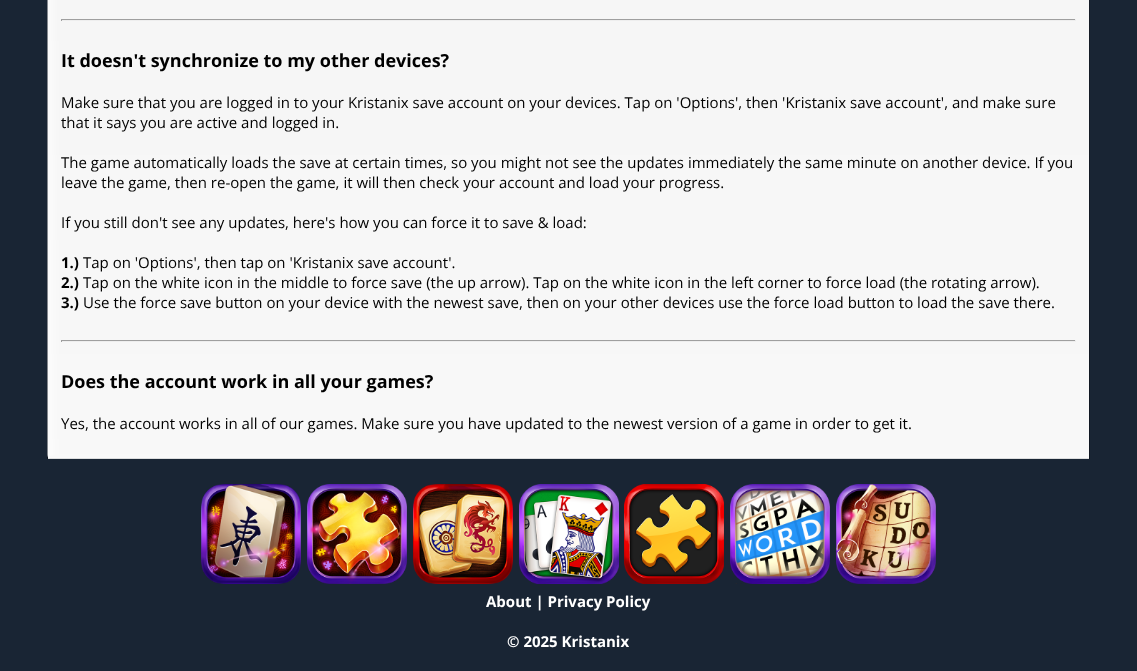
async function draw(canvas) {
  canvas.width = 1137
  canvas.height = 671
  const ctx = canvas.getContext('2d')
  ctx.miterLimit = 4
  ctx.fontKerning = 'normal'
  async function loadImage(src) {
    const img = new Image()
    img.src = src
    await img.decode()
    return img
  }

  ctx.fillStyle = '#192534'
  ctx.fillRect(0, 0, 1137, 671)
  ctx.drawImage(await loadImage('image0.png'), 47, 0, 1043, 459)
  ctx.fillStyle = '#9f9f9f'
  ctx.fillRect(61, 19, 1015, 1)
  ctx.fillStyle = '#eee'
  ctx.fillRect(1075, 19, 1, 2)
  ctx.fillRect(61, 20, 1015, 1)
  ctx.fillStyle = '#9f9f9f'
  ctx.fillRect(61, 19, 1, 2)
  ctx.font = 'bold 18px Open Sans'
  ctx.fillStyle = '#000'
  ctx.fillText('It doesn\'t synchronize to my other devices?', 61, 67)
  ctx.font = '15px Open Sans'
  ctx.fillText('Make sure that you are logged in to your Kristanix save account on your devices. Tap on \'Options\', then \'Kristanix save account\', and make sure', 61, 108)
  ctx.fillText('that it says you are active and logged in.', 61, 128)
  ctx.fillText('The game automatically loads the save at certain times, so you might not see the updates immediately the same minute on another device. If you', 61, 168)
  ctx.fillText('leave the game, then re-open the game, it will then check your account and load your progress.', 61, 188)
  ctx.fillText('If you still don\'t see any updates, here\'s how you can force it to save & load:', 61, 228)
  ctx.font = 'bold 15px Open Sans'
  ctx.fillText('1.)', 61, 268)
  ctx.font = '15px Open Sans'
  ctx.fillText('Tap on \'Options\', then tap on \'Kristanix save account\'.', 83, 268)
  ctx.font = 'bold 15px Open Sans'
  ctx.fillText('2.)', 61, 288)
  ctx.font = '15px Open Sans'
  ctx.fillText('Tap on the white icon in the middle to force save (the up arrow). Tap on the white icon in the left corner to force load (the rotating arrow).', 83, 288)
  ctx.font = 'bold 15px Open Sans'
  ctx.fillText('3.)', 61, 308)
  ctx.font = '15px Open Sans'
  ctx.fillText('Use the force save button on your device with the newest save, then on your other devices use the force load button to load the save there.', 83, 308)
  ctx.fillStyle = '#9f9f9f'
  ctx.fillRect(61, 340, 1015, 1)
  ctx.fillStyle = '#eee'
  ctx.fillRect(1075, 340, 1, 2)
  ctx.fillRect(61, 341, 1015, 1)
  ctx.fillStyle = '#9f9f9f'
  ctx.fillRect(61, 340, 1, 2)
  ctx.font = 'bold 18px Open Sans'
  ctx.fillStyle = '#000'
  ctx.fillText('Does the account work in all your games?', 61, 388)
  ctx.font = '15px Open Sans'
  ctx.fillText('Yes, the account works in all of our games. Make sure you have updated to the newest version of a game in order to get it.', 61, 429)
  ctx.drawImage(await loadImage('image1.png'), 201, 484, 100, 100)
  ctx.drawImage(await loadImage('image2.png'), 307, 484, 100, 100)
  ctx.drawImage(await loadImage('image3.png'), 413, 484, 100, 100)
  ctx.drawImage(await loadImage('image4.png'), 519, 484, 100, 100)
  ctx.drawImage(await loadImage('image5.png'), 624, 484, 100, 100)
  ctx.drawImage(await loadImage('image6.png'), 730, 484, 100, 100)
  ctx.drawImage(await loadImage('image7.png'), 836, 484, 100, 100)
  ctx.font = 'bold 15px Open Sans'
  ctx.fillStyle = '#fff'
  ctx.fillText('About | Privacy Policy', 486, 607)
  ctx.fillText('© 2025 Kristanix', 507, 647)
}

draw(document.querySelector('canvas'))
